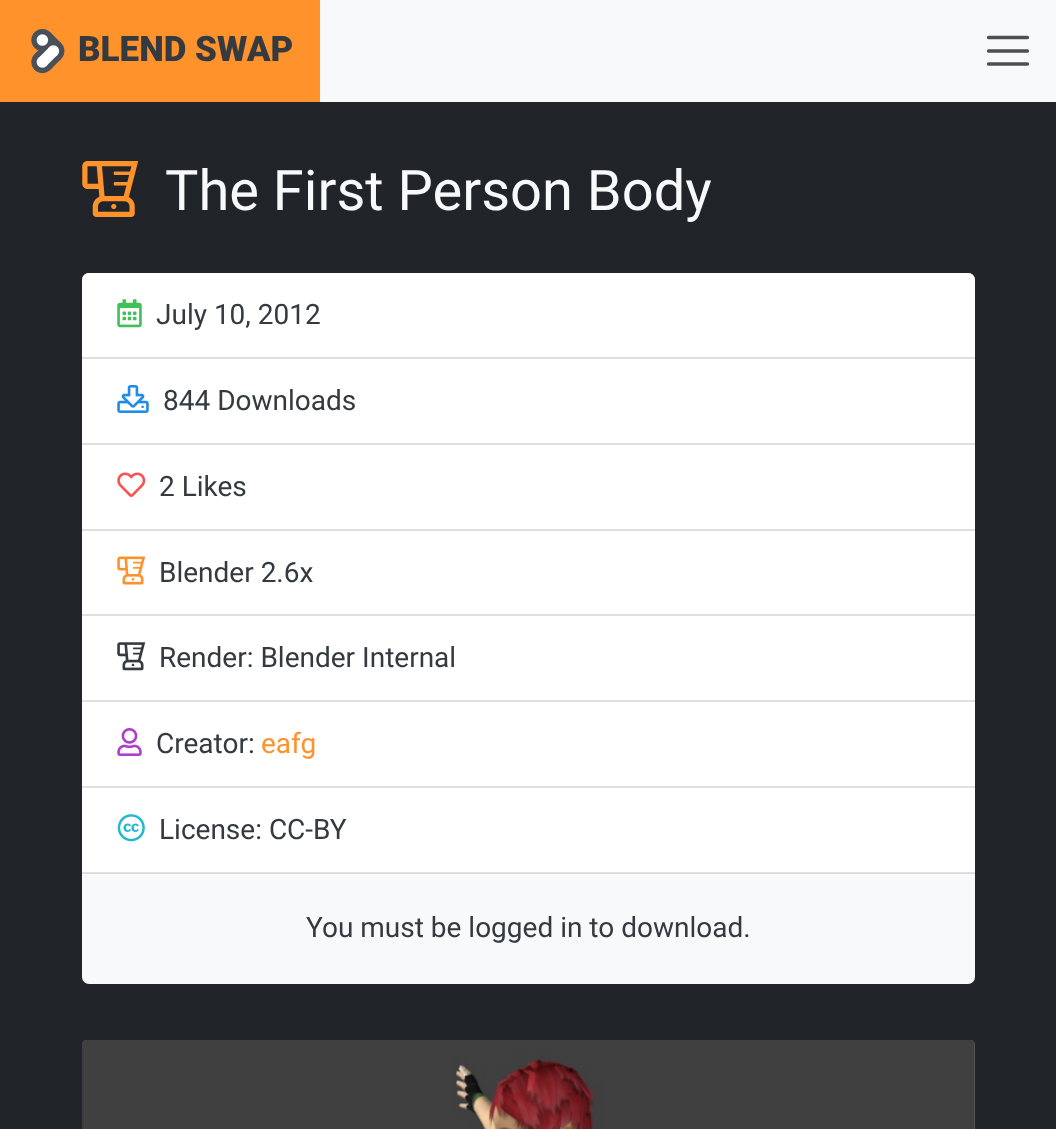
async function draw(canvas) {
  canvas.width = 1056
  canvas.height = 1129
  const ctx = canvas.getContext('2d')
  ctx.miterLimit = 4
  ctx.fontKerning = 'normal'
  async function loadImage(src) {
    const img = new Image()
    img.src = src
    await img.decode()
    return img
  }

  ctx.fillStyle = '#212529'
  ctx.fillRect(0, 0, 1056, 1129)
  ctx.fillStyle = '#f8f9fa'
  ctx.fillRect(320, 0, 736, 102)
  ctx.fillStyle = '#ff922b'
  ctx.fillRect(0, 0, 320, 102)
  ctx.drawImage(await loadImage('image0.png'), 31, 29, 34, 45)
  ctx.font = '900 35px Roboto'
  ctx.fillStyle = '#343a40'
  ctx.fillText('BLEND SWAP', 78, 61)
  ctx.beginPath()
  ctx.moveTo(988.5, 37.5)
  ctx.lineTo(1027.5, 37.5)
  ctx.moveTo(988.5, 51)
  ctx.lineTo(1027.5, 51)
  ctx.moveTo(988.5, 64)
  ctx.lineTo(1027.5, 64)
  ctx.strokeStyle = '#4f4f4f'
  ctx.lineWidth = 3.3
  ctx.lineCap = 'round'
  ctx.stroke()
  ctx.drawImage(await loadImage('image1.png'), 82, 161, 57, 56)
  ctx.font = '56px Roboto'
  ctx.fillStyle = '#f8f9fa'
  ctx.fillText('The First Person Body', 165, 210)
  ctx.beginPath()
  ctx.roundRect(82, 273, 893, 711, 7)
  ctx.fill()
  ctx.fillStyle = '#dadbdc'
  ctx.fillRect(82, 873, 893, 1)
  ctx.fillStyle = '#fff'
  ctx.beginPath()
  ctx.roundRect(82, 273, 893, 86, [7, 7, 0, 0])
  ctx.fill()
  ctx.drawImage(await loadImage('image2.png'), 117, 299, 25, 29)
  ctx.font = '28px Roboto'
  ctx.fillStyle = '#343a40'
  ctx.fillText('July 10, 2012', 156, 324)
  ctx.fillStyle = '#fff'
  ctx.fillRect(82, 359, 893, 84)
  ctx.fillStyle = '#dfdfdf'
  ctx.fillRect(82, 357, 893, 2)
  ctx.drawImage(await loadImage('image3.png'), 117, 385, 32, 28)
  ctx.fillStyle = '#343a40'
  ctx.fillText('844 Downloads', 163, 410)
  ctx.fillStyle = '#fff'
  ctx.fillRect(82, 445, 893, 84)
  ctx.fillStyle = '#dfdfdf'
  ctx.fillRect(82, 443, 893, 2)
  ctx.drawImage(await loadImage('image4.png'), 117, 472, 29, 25)
  ctx.fillStyle = '#343a40'
  ctx.fillText('2 Likes', 159, 496)
  ctx.fillStyle = '#fff'
  ctx.fillRect(82, 531, 893, 83)
  ctx.fillStyle = '#dfdfdf'
  ctx.fillRect(82, 529, 893, 2)
  ctx.drawImage(await loadImage('image5.png'), 117, 556, 29, 29)
  ctx.fillStyle = '#343a40'
  ctx.fillText('Blender 2.6x', 159, 582)
  ctx.fillStyle = '#fff'
  ctx.fillRect(82, 616, 893, 84)
  ctx.fillStyle = '#dfdfdf'
  ctx.fillRect(82, 614, 893, 2)
  ctx.drawImage(await loadImage('image6.png'), 117, 642, 29, 29)
  ctx.fillStyle = '#343a40'
  ctx.fillText('Render: Blender Internal', 159, 667)
  ctx.fillStyle = '#fff'
  ctx.fillRect(82, 702, 893, 84)
  ctx.fillStyle = '#dfdfdf'
  ctx.fillRect(82, 700, 893, 2)
  ctx.drawImage(await loadImage('image7.png'), 117, 728, 25, 28)
  ctx.fillStyle = '#343a40'
  ctx.fillText('Creator:', 156, 753)
  ctx.fillStyle = '#ff922b'
  ctx.fillText('eafg', 261, 753)
  ctx.fillStyle = '#fff'
  ctx.fillRect(82, 788, 893, 84)
  ctx.fillStyle = '#e0e0e0'
  ctx.fillRect(82, 872, 893, 1)
  ctx.fillStyle = '#dfdfdf'
  ctx.fillRect(82, 786, 893, 2)
  ctx.drawImage(await loadImage('image8.png'), 117, 814, 28, 28)
  ctx.fillStyle = '#343a40'
  ctx.fillText('License: CC-BY', 159, 839)
  ctx.fillText('You must be logged in to download.', 306, 937)
  ctx.fillStyle = '#393c3f'
  ctx.beginPath()
  ctx.roundRect(82, 1040, 893, 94, 5)
  ctx.fill()
  ctx.fillStyle = '#80808040'
  ctx.beginPath()
  ctx.roundRect(82, 1040, 893, 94, 5)
  ctx.fill()
  ctx.beginPath()
  ctx.roundRect(82, 1040, 893, 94, 5)
  ctx.fill()
  ctx.beginPath()
  ctx.roundRect(82, 1040, 893, 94, 5)
  ctx.fill()
  ctx.drawImage(await loadImage('image9.png'), 82, 1040, 893, 89)
}

draw(document.querySelector('canvas'))
